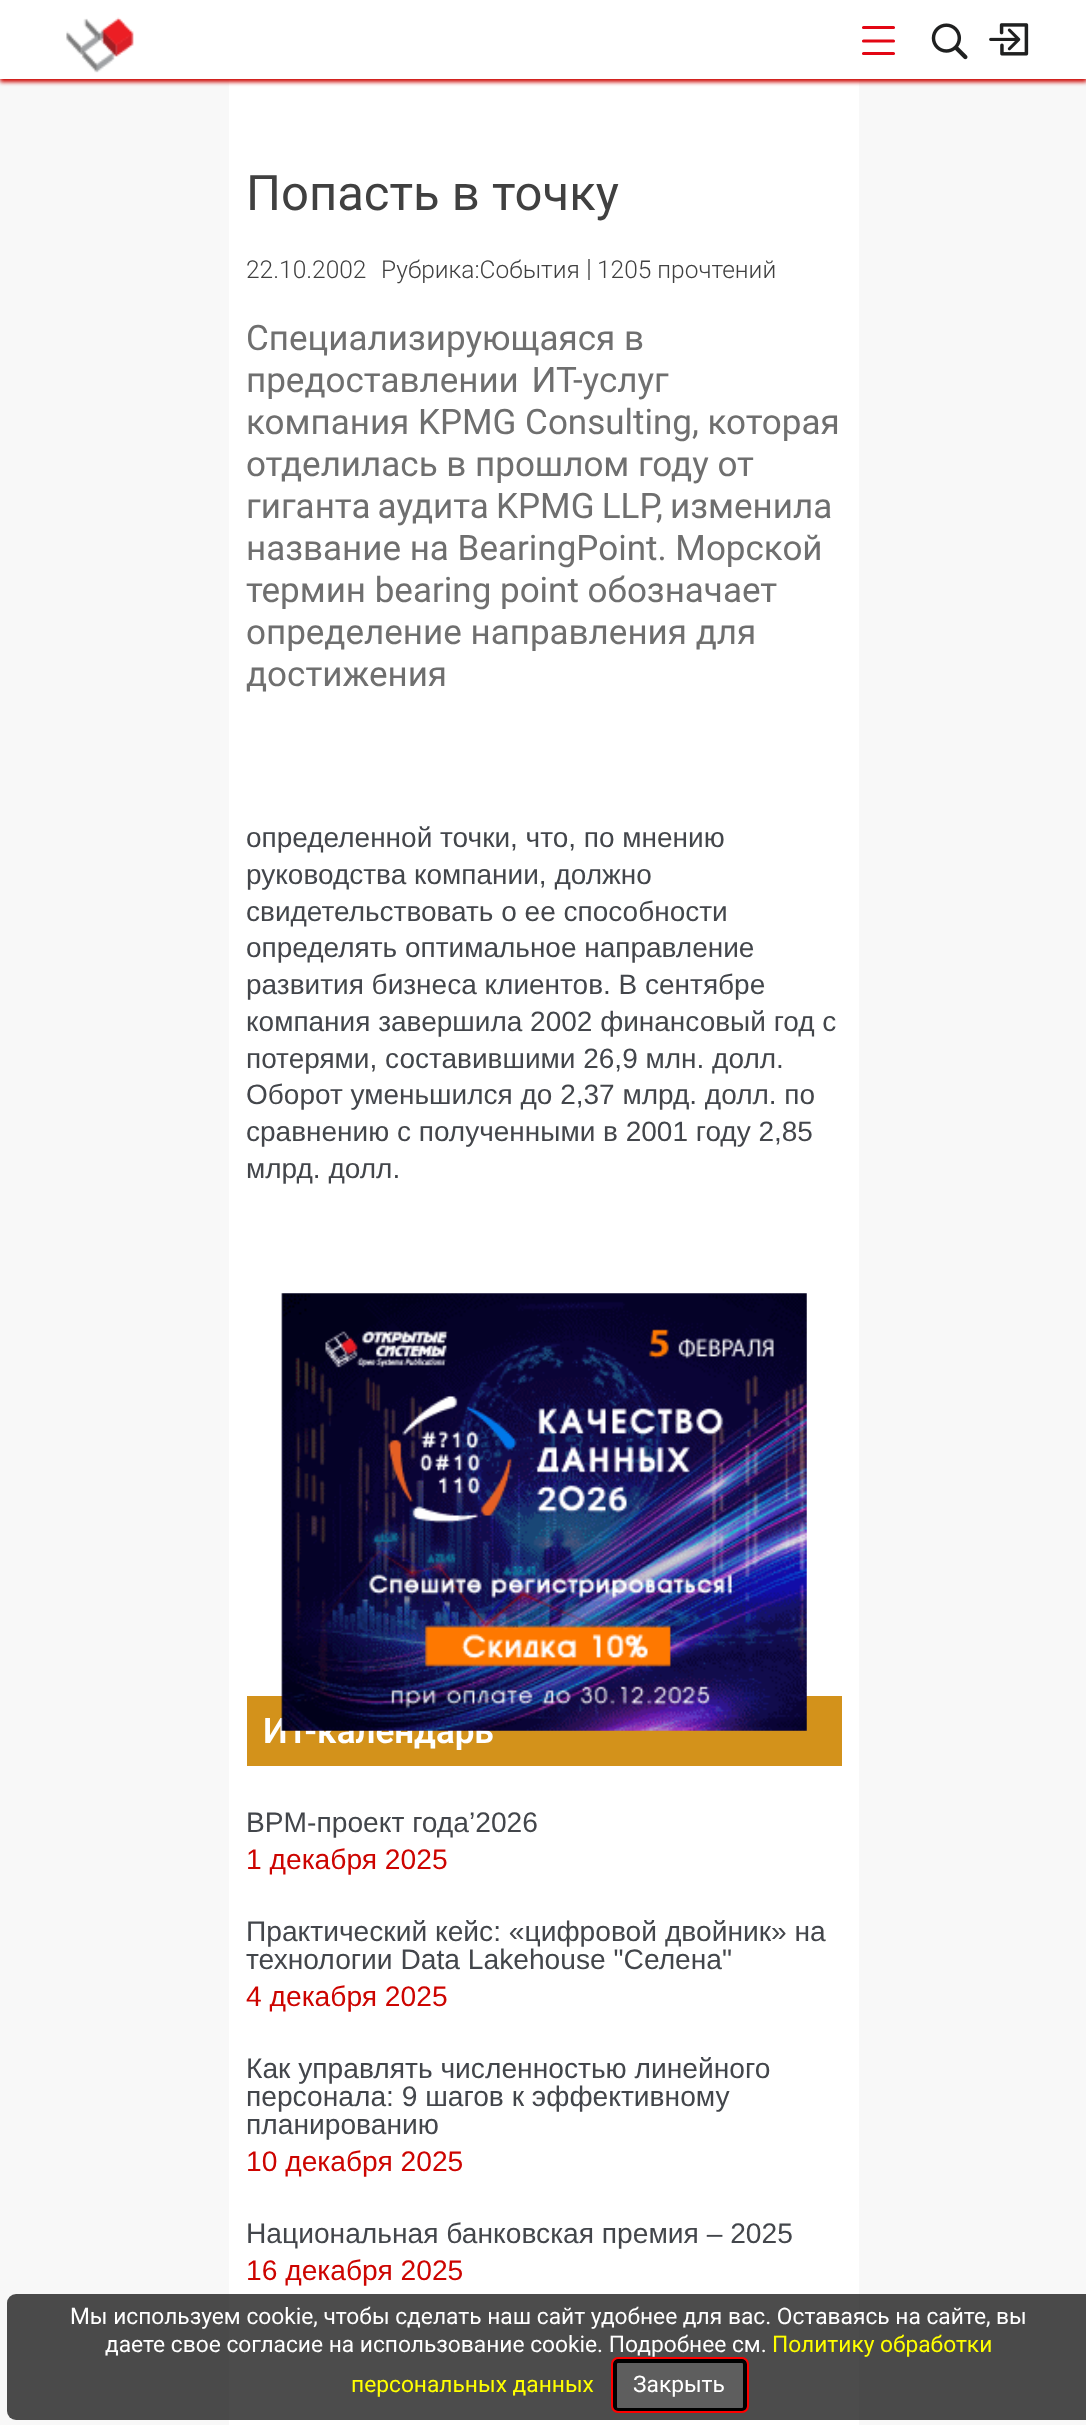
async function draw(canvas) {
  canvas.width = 1086
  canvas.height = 2425
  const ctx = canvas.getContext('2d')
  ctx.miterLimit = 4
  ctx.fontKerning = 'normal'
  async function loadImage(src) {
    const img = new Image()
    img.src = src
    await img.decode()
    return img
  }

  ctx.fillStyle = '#f8f8f8'
  ctx.fillRect(0, 0, 1086, 2425)
  ctx.fillStyle = '#fff'
  ctx.fillRect(229, 79, 630, 2346)
  ctx.fillStyle = '#cd0400'
  ctx.filter = 'blur(2px)'
  ctx.beginPath()
  ctx.rect(0, 4, 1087, 78)
  ctx.fill()
  ctx.filter = 'none'
  ctx.fillStyle = '#fff'
  ctx.fillRect(0, 0, 1086, 79)
  ctx.drawImage(await loadImage('image0.png'), 66, 17, 68, 56)
  ctx.beginPath()
  ctx.moveTo(863.5, 27.5)
  ctx.lineTo(893.5, 27.5)
  ctx.moveTo(863.5, 41)
  ctx.lineTo(893.5, 41)
  ctx.moveTo(863.5, 53.5)
  ctx.lineTo(893.5, 53.5)
  ctx.strokeStyle = '#e30613'
  ctx.lineWidth = 3.1
  ctx.lineCap = 'round'
  ctx.stroke()
  ctx.drawImage(await loadImage('image1.png'), 931, 23, 37, 37)
  ctx.drawImage(await loadImage('image2.png'), 989, 23, 40, 33)
  ctx.font = '49px Roboto'
  ctx.fillStyle = '#404040'
  ctx.fillText('Попасть в точку', 246, 210)
  ctx.font = '300 24.5px Roboto'
  ctx.fillText('22.10.2002', 246, 278)
  ctx.fillStyle = '#808080'
  ctx.fillRect(588, 259, 2, 21)
  ctx.fillStyle = '#404040'
  ctx.fillText('Рубрика:События', 381, 278)
  ctx.fillText('1205 прочтений', 597, 278)
  ctx.font = '35px Roboto'
  ctx.fillStyle = '#6f6f6f'
  ctx.fillText('Специализирующаяся в', 246, 350)
  ctx.wordSpacing = '4px'
  ctx.fillText('предоставлении ИТ-услуг', 246, 392)
  ctx.wordSpacing = '0px'
  ctx.fillText('компания KPMG Consulting, которая', 246, 434)
  ctx.fillText('отделилась в прошлом году от', 246, 476)
  ctx.wordSpacing = '-1.5px'
  ctx.fillText('гиганта аудита KPMG LLP, изменила', 246, 518)
  ctx.wordSpacing = '0px'
  ctx.fillText('название на BearingPoint. Морской', 246, 560)
  ctx.fillText('термин bearing point обозначает', 246, 602)
  ctx.fillText('определение направления для', 246, 644)
  ctx.fillText('достижения', 246, 686)
  ctx.font = '28px Liberation Sans'
  ctx.fillStyle = '#43464b'
  ctx.fillText('определенной точки, что, по мнению', 246, 847)
  ctx.fillText('руководства компании, должно', 246, 884)
  ctx.fillText('свидетельствовать о ее способности', 246, 921)
  ctx.fillText('определять оптимальное направление', 246, 957)
  ctx.fillText('развития бизнеса клиентов. В сентябре', 246, 994)
  ctx.fillText('компания завершила 2002 финансовый год с', 246, 1031)
  ctx.fillText('потерями, составившими 26,9 млн. долл.', 246, 1068)
  ctx.fillText('Оборот уменьшился до 2,37 млрд. долл. по', 246, 1104)
  ctx.fillText('сравнению с полученными в 2001 году 2,85', 246, 1141)
  ctx.fillText('млрд. долл.', 246, 1178)
  ctx.fillStyle = '#d3921b'
  ctx.fillRect(247, 1696, 595, 70)
  ctx.font = '600 35px Roboto'
  ctx.fillStyle = '#fff'
  ctx.fillText('ИТ-календарь', 263, 1743)
  ctx.drawImage(await loadImage('image3.png'), 281, 1293, 526, 438)
  ctx.font = '28.2px Liberation Sans'
  ctx.fillStyle = '#43464b'
  ctx.fillText('BPM-проект года’2026', 246, 1832)
  ctx.fillStyle = '#cd0400'
  ctx.fillText('1 декабря 2025', 246, 1869)
  ctx.fillStyle = '#43464b'
  ctx.fillText('Практический кейс: «цифровой двойник» на', 246, 1941)
  ctx.fillText('технологии Data Lakehouse "Селена"', 246, 1969)
  ctx.fillStyle = '#cd0400'
  ctx.fillText('4 декабря 2025', 246, 2006)
  ctx.fillStyle = '#43464b'
  ctx.fillText('Как управлять численностью линейного', 246, 2078)
  ctx.fillText('персонала: 9 шагов к эффективному', 246, 2106)
  ctx.fillText('планированию', 246, 2134)
  ctx.fillStyle = '#cd0400'
  ctx.fillText('10 декабря 2025', 246, 2171)
  ctx.fillStyle = '#43464b'
  ctx.fillText('Национальная банковская премия – 2025', 246, 2243)
  ctx.fillStyle = '#cd0400'
  ctx.fillText('16 декабря 2025', 246, 2280)
  ctx.fillStyle = '#000000b3'
  ctx.beginPath()
  ctx.roundRect(7, 2294, 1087, 126, 9)
  ctx.fill()
  ctx.font = '22.75px Roboto'
  ctx.fillStyle = '#fff'
  ctx.fillText('Мы используем cookie, чтобы сделать наш сайт удобнее для вас. Оставаясь на сайте, вы', 70, 2324)
  ctx.fillText('даете свое согласие на использование cookie. Подробнее см.', 105, 2352)
  ctx.fillStyle = '#ff0'
  ctx.fillText('Политику обработки', 772, 2352)
  ctx.fillText('персональных данных', 351, 2392)
  ctx.fillStyle = '#5e5e5e'
  ctx.beginPath()
  ctx.roundRect(615, 2361, 130, 49, 3)
  ctx.fill()
  ctx.strokeStyle = '#000'
  ctx.lineWidth = 4
  ctx.stroke()
  ctx.beginPath()
  ctx.roundRect(612, 2358, 136, 54, 6)
  ctx.strokeStyle = '#f00'
  ctx.lineWidth = 2
  ctx.stroke()
  ctx.fillStyle = '#fff'
  ctx.fillText('Закрыть', 633, 2392)
}

draw(document.querySelector('canvas'))
